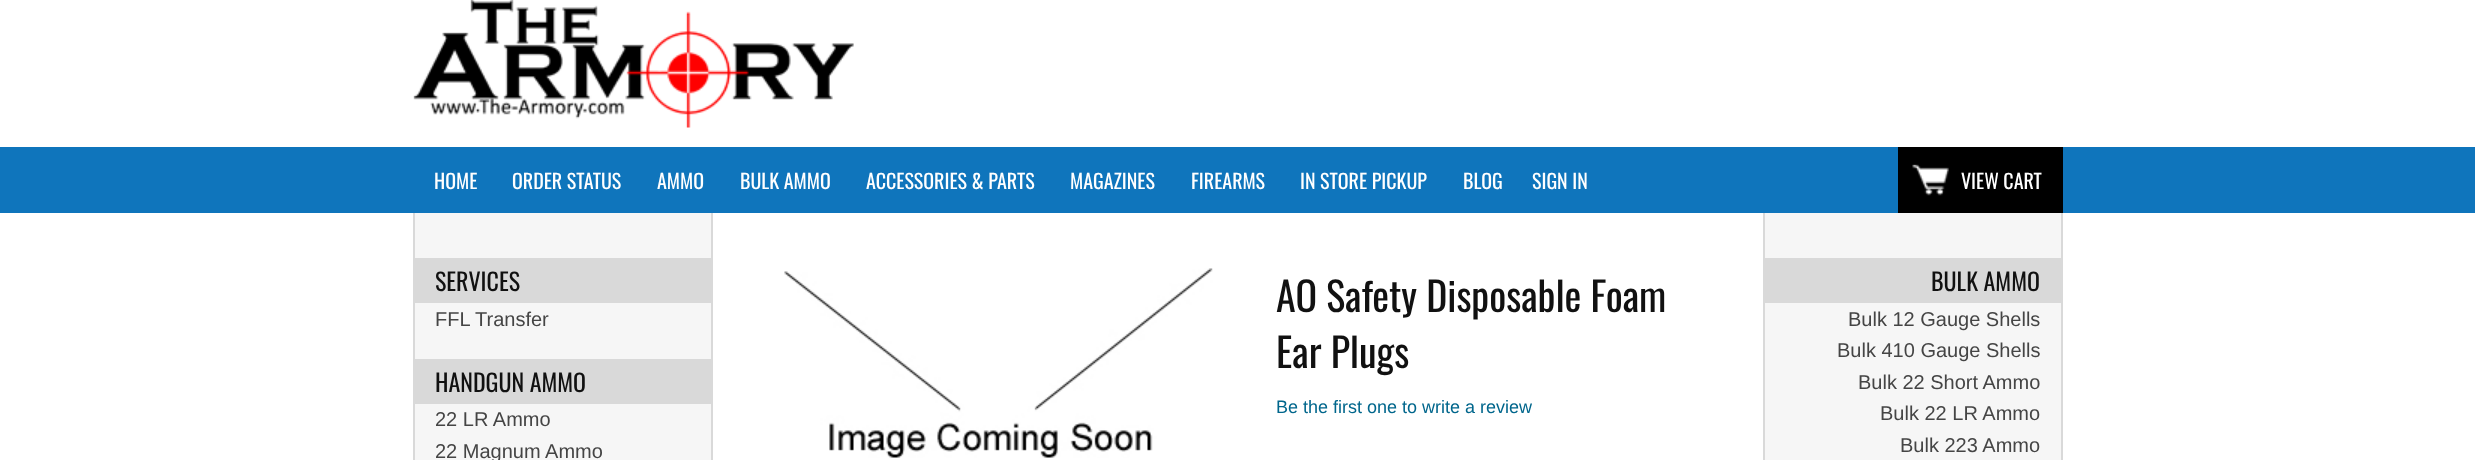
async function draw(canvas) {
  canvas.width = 2475
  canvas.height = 460
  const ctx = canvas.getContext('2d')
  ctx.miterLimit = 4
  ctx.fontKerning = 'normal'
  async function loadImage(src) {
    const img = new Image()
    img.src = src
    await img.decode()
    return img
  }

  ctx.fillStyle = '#fff'
  ctx.fillRect(0, 0, 2475, 460)
  ctx.drawImage(await loadImage('image0.png'), 413, 0, 441, 128)
  ctx.fillStyle = '#0f75bc'
  ctx.fillRect(0, 147, 2475, 66)
  ctx.font = '20px Oswald'
  ctx.fillStyle = '#fff'
  ctx.fillText('HOME', 434, 189)
  ctx.fillText('ORDER STATUS', 512, 189)
  ctx.fillText('AMMO', 657, 189)
  ctx.fillText('BULK AMMO', 740, 189)
  ctx.fillText('ACCESSORIES & PARTS', 866, 189)
  ctx.fillText('MAGAZINES', 1070, 189)
  ctx.fillText('FIREARMS', 1191, 189)
  ctx.fillText('IN STORE PICKUP', 1300, 189)
  ctx.fillText('BLOG', 1463, 189)
  ctx.fillText('SIGN IN', 1532, 189)
  ctx.fillStyle = '#000'
  ctx.fillRect(1898, 147, 165, 66)
  ctx.drawImage(await loadImage('image1.png'), 1912, 164, 37, 32)
  ctx.fillStyle = '#fff'
  ctx.fillText('VIEW CART', 1961, 189)
  ctx.fillStyle = '#f6f6f6'
  ctx.fillRect(415, 213, 1646, 247)
  ctx.fillStyle = '#d9d9d9'
  ctx.fillRect(2061, 213, 2, 247)
  ctx.fillRect(413, 213, 2, 247)
  ctx.fillRect(415, 258, 296, 45)
  ctx.font = '24px Oswald'
  ctx.fillStyle = '#111'
  ctx.fillText('SERVICES', 435, 291)
  ctx.font = '20px Liberation Sans'
  ctx.fillStyle = '#454545'
  ctx.fillText('FFL Transfer', 435, 326)
  ctx.fillStyle = '#d9d9d9'
  ctx.fillRect(415, 359, 296, 45)
  ctx.font = '24px Oswald'
  ctx.fillStyle = '#111'
  ctx.fillText('HANDGUN AMMO', 435, 392)
  ctx.font = '20px Liberation Sans'
  ctx.fillStyle = '#454545'
  ctx.fillText('22 LR Ammo', 435, 426)
  ctx.fillText('22 Magnum Ammo', 435, 458)
  ctx.fillStyle = '#fff'
  ctx.fillRect(713, 213, 1050, 247)
  ctx.fillStyle = '#d9d9d9'
  ctx.fillRect(1763, 213, 2, 247)
  ctx.fillRect(711, 213, 2, 247)
  ctx.drawImage(await loadImage('image2.png'), 784, 268, 429, 190)
  ctx.font = '40px Oswald'
  ctx.fillStyle = '#111'
  ctx.fillText('AO Safety Disposable Foam', 1276, 312)
  ctx.fillText('Ear Plugs', 1276, 368)
  ctx.font = '18px Liberation Sans'
  ctx.fillStyle = '#00668c'
  ctx.fillText('Be the first one to write a review', 1276, 413)
  ctx.fillStyle = '#d9d9d9'
  ctx.fillRect(1765, 258, 296, 45)
  ctx.font = '24px Oswald'
  ctx.fillStyle = '#111'
  ctx.fillText('BULK AMMO', 1931, 291)
  ctx.font = '20px Liberation Sans'
  ctx.fillStyle = '#454545'
  ctx.fillText('Bulk 12 Gauge Shells', 1848, 326)
  ctx.fillText('Bulk 410 Gauge Shells', 1837, 357)
  ctx.fillText('Bulk 22 Short Ammo', 1858, 389)
  ctx.fillText('Bulk 22 LR Ammo', 1880, 420)
  ctx.fillText('Bulk 223 Ammo', 1900, 452)
}

draw(document.querySelector('canvas'))
